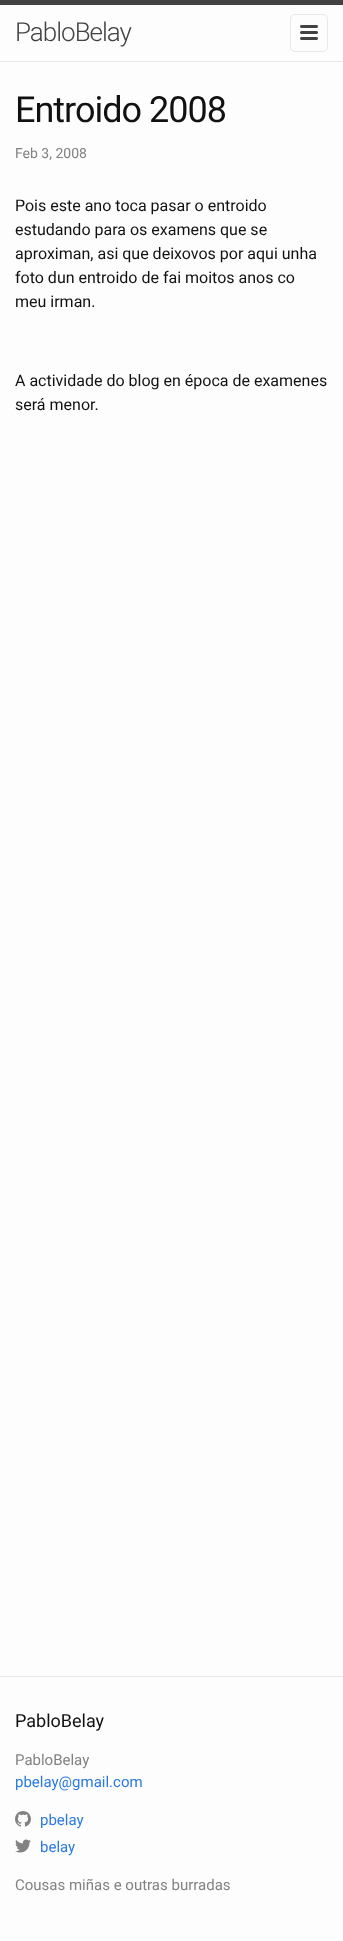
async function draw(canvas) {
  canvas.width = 343
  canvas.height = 1941
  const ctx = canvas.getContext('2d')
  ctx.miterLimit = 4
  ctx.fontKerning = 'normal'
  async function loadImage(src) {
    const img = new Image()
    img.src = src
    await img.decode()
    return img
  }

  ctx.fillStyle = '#fdfdfd'
  ctx.fillRect(0, 0, 343, 1941)
  ctx.fillStyle = '#424242'
  ctx.fillRect(0, 0, 343, 5)
  ctx.fillStyle = '#e8e8e8'
  ctx.fillRect(0, 61, 343, 1)
  ctx.letterSpacing = '-1px'
  ctx.font = '300 26px Roboto'
  ctx.fillStyle = '#424242'
  ctx.fillText('PabloBelay', 15, 41)
  ctx.beginPath()
  ctx.roundRect(290.5, 14.5, 37, 37, 4.5)
  ctx.strokeStyle = '#e8e8e8'
  ctx.stroke()
  ctx.drawImage(await loadImage('image0.png'), 300, 25, 18, 15)
  ctx.font = '36px Roboto'
  ctx.fillStyle = '#111'
  ctx.fillText('Entroido 2008', 15, 122)
  ctx.letterSpacing = '0px'
  ctx.font = '14px Roboto'
  ctx.fillStyle = '#828282'
  ctx.fillText('Feb 3, 2008', 15, 158)
  ctx.font = '16px Roboto'
  ctx.fillStyle = '#111'
  ctx.fillText('Pois este ano toca pasar o entroido', 15, 211)
  ctx.fillText('estudando para os examens que se', 15, 235)
  ctx.fillText('aproximan, asi que deixovos por aqui unha', 15, 259)
  ctx.fillText('foto dun entroido de fai moitos anos co', 15, 283)
  ctx.fillText('meu irman.', 15, 307)
  ctx.fillText('A actividade do blog en época de examenes', 15, 386)
  ctx.fillText('será menor.', 15, 410)
  ctx.fillStyle = '#e8e8e8'
  ctx.fillRect(0, 1676, 343, 1)
  ctx.font = '18px Roboto'
  ctx.fillStyle = '#111'
  ctx.fillText('PabloBelay', 15, 1727)
  ctx.font = '15px Roboto'
  ctx.fillStyle = '#828282'
  ctx.fillText('PabloBelay', 15, 1765)
  ctx.fillStyle = '#2a7ae2'
  ctx.fillText('pbelay@gmail.com', 15, 1787)
  ctx.drawImage(await loadImage('image1.png'), 15, 1811, 16, 16)
  ctx.fillText('pbelay', 40, 1825)
  ctx.drawImage(await loadImage('image2.png'), 15, 1839, 16, 14)
  ctx.fillText('belay', 40, 1852)
  ctx.fillStyle = '#828282'
  ctx.fillText('Cousas miñas e outras burradas', 15, 1890)
}

draw(document.querySelector('canvas'))
